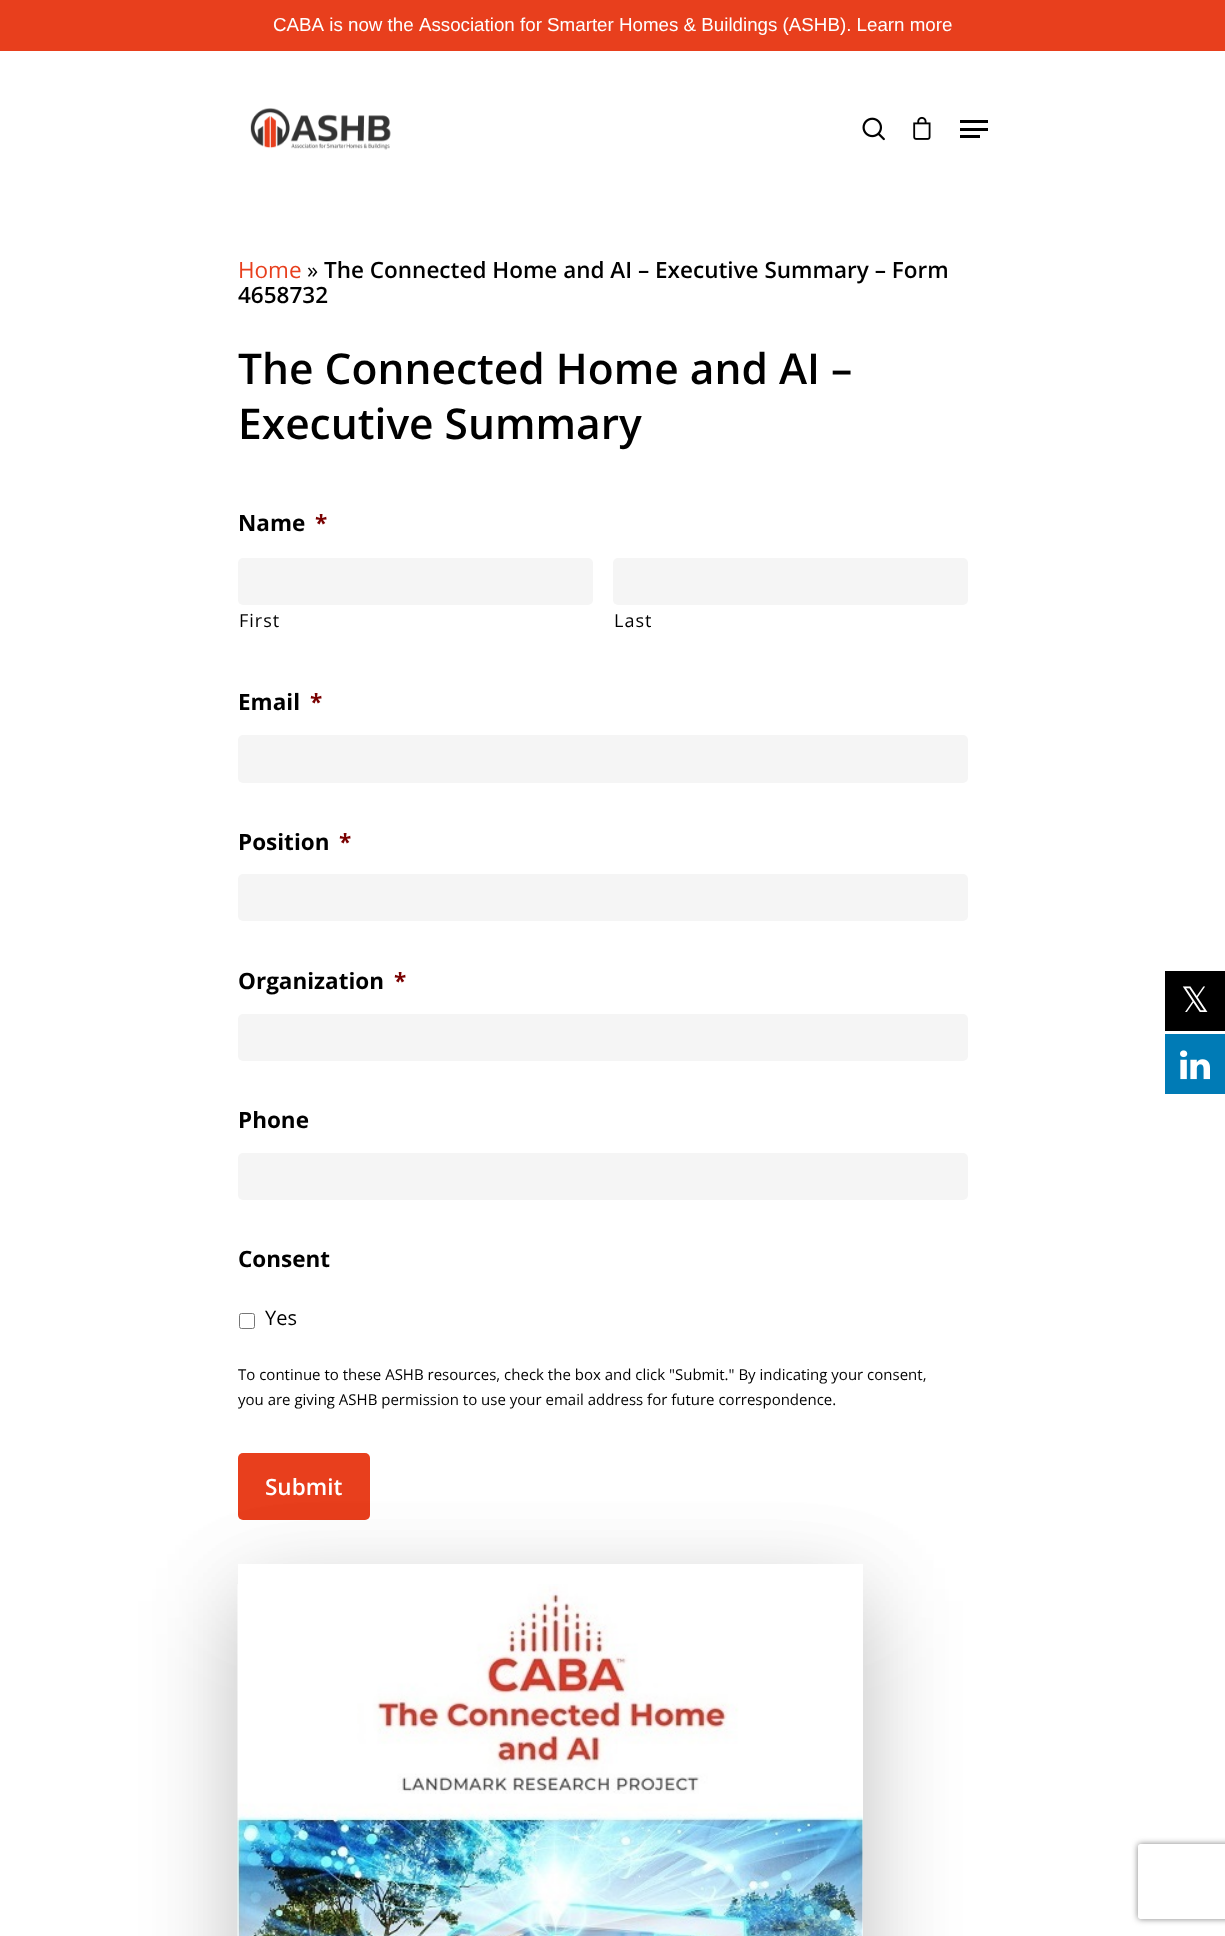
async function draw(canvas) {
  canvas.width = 1225
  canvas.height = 1936
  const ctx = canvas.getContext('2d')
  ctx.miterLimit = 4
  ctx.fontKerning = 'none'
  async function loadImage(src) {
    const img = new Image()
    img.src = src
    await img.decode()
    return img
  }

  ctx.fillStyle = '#fff'
  ctx.fillRect(0, 0, 1225, 1936)
  ctx.fillStyle = '#e83f1d'
  ctx.fillRect(0, 0, 1225, 51)
  ctx.font = '18.75px Liberation Sans'
  ctx.fillStyle = '#fff'
  ctx.fillText('CABA is now the Association for Smarter Homes & Buildings (ASHB). Learn more', 273, 31)
  ctx.drawImage(await loadImage('image0.png'), 250, 108, 141, 42)
  ctx.drawImage(await loadImage('image1.png'), 862, 117, 23, 24)
  ctx.drawImage(await loadImage('image2.png'), 913, 116, 18, 24)
  ctx.fillStyle = '#000'
  ctx.fillRect(960, 120, 28, 3)
  ctx.fillRect(960, 135, 20, 3)
  ctx.fillRect(960, 128, 28, 3)
  ctx.font = '22.5px Open Sans'
  ctx.fillStyle = '#e83f1d'
  ctx.fillText('Home', 238, 278)
  ctx.fillStyle = '#000'
  ctx.fillText('»', 307, 278)
  ctx.font = '600 22.5px Open Sans'
  ctx.fillText('The Connected Home and AI – Executive Summary – Form', 324, 278)
  ctx.fillText('4658732', 238, 303)
  ctx.font = '600 42.5px Open Sans'
  ctx.fillText('The Connected Home and AI –', 238, 384)
  ctx.fillText('Executive Summary', 238, 439)
  ctx.font = 'bold 22.5px Open Sans'
  ctx.fillText('Name', 238, 531)
  ctx.fillStyle = '#790000'
  ctx.fillText('*', 315, 531)
  ctx.fillStyle = '#f5f5f5'
  ctx.beginPath()
  ctx.roundRect(238, 558, 355, 47, 5)
  ctx.fill()
  ctx.letterSpacing = '1px'
  ctx.font = '18px Open Sans'
  ctx.fillStyle = '#000'
  ctx.fillText('First', 239, 627)
  ctx.fillStyle = '#f5f5f5'
  ctx.beginPath()
  ctx.roundRect(613, 558, 355, 47, 5)
  ctx.fill()
  ctx.fillStyle = '#000'
  ctx.fillText('Last', 614, 627)
  ctx.letterSpacing = '0px'
  ctx.font = 'bold 22.5px Open Sans'
  ctx.fillText('Email', 238, 710)
  ctx.fillStyle = '#790000'
  ctx.fillText('*', 310, 710)
  ctx.fillStyle = '#f5f5f5'
  ctx.beginPath()
  ctx.roundRect(238, 735, 730, 48, 5)
  ctx.fill()
  ctx.fillStyle = '#000'
  ctx.fillText('Position', 238, 850)
  ctx.fillStyle = '#790000'
  ctx.fillText('*', 339, 850)
  ctx.fillStyle = '#f5f5f5'
  ctx.beginPath()
  ctx.roundRect(238, 874, 730, 47, 5)
  ctx.fill()
  ctx.fillStyle = '#000'
  ctx.fillText('Organization', 238, 989)
  ctx.fillStyle = '#790000'
  ctx.fillText('*', 394, 989)
  ctx.fillStyle = '#f5f5f5'
  ctx.beginPath()
  ctx.roundRect(238, 1014, 730, 47, 5)
  ctx.fill()
  ctx.fillStyle = '#000'
  ctx.fillText('Phone', 238, 1128)
  ctx.fillStyle = '#f5f5f5'
  ctx.beginPath()
  ctx.roundRect(238, 1153, 730, 47, 5)
  ctx.fill()
  ctx.fillStyle = '#000'
  ctx.fillText('Consent', 238, 1267)
  ctx.beginPath()
  ctx.roundRect(239.5, 1313.5, 15, 15, 2)
  ctx.strokeStyle = '#767676'
  ctx.stroke()
  ctx.font = '20px Open Sans'
  ctx.fillText('Yes', 265, 1325)
  ctx.font = '15px Open Sans'
  ctx.fillText('To continue to these ASHB resources, check the box and click "Submit." By indicating your consent,', 238, 1380)
  ctx.fillText('you are giving ASHB permission to use your email address for future correspondence.', 238, 1405)
  ctx.save()
  ctx.beginPath()
  ctx.moveTo(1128, 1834)
  ctx.lineTo(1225, 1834)
  ctx.lineTo(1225, 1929)
  ctx.lineTo(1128, 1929)
  ctx.closePath()
  ctx.moveTo(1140.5, 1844)
  ctx.lineTo(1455.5, 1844)
  ctx.bezierCurveTo(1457, 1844, 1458, 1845, 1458, 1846.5)
  ctx.lineTo(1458, 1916.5)
  ctx.bezierCurveTo(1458, 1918, 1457, 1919, 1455.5, 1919)
  ctx.lineTo(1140.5, 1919)
  ctx.bezierCurveTo(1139, 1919, 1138, 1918, 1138, 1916.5)
  ctx.lineTo(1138, 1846.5)
  ctx.bezierCurveTo(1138, 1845, 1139, 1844, 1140.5, 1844)
  ctx.closePath()
  ctx.clip('evenodd')
  ctx.fillStyle = '#808080'
  ctx.filter = 'blur(3px)'
  ctx.beginPath()
  ctx.roundRect(1138, 1844, 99, 75, 2.5)
  ctx.fill()
  ctx.filter = 'none'
  ctx.restore()
  ctx.fillStyle = '#e83f1d'
  ctx.beginPath()
  ctx.roundRect(238, 1453, 132, 67, 5)
  ctx.fill()
  ctx.font = '600 22.5px Open Sans'
  ctx.fillStyle = '#fff'
  ctx.fillText('Submit', 265, 1495)
  ctx.save()
  ctx.beginPath()
  ctx.moveTo(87, 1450)
  ctx.lineTo(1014, 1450)
  ctx.lineTo(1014, 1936)
  ctx.lineTo(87, 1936)
  ctx.closePath()
  ctx.moveTo(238, 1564)
  ctx.lineTo(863, 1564)
  ctx.lineTo(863, 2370)
  ctx.lineTo(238, 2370)
  ctx.closePath()
  ctx.clip('evenodd')
  ctx.fillStyle = '#00000024'
  ctx.filter = 'blur(50px)'
  ctx.beginPath()
  ctx.rect(238, 1601, 625, 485)
  ctx.fill()
  ctx.filter = 'none'
  ctx.restore()
  ctx.save()
  ctx.beginPath()
  ctx.moveTo(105, 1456)
  ctx.lineTo(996, 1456)
  ctx.lineTo(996, 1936)
  ctx.lineTo(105, 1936)
  ctx.closePath()
  ctx.moveTo(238, 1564)
  ctx.lineTo(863, 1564)
  ctx.lineTo(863, 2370)
  ctx.lineTo(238, 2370)
  ctx.closePath()
  ctx.clip('evenodd')
  ctx.fillStyle = '#0000001f'
  ctx.filter = 'blur(44px)'
  ctx.beginPath()
  ctx.rect(238, 1589, 625, 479)
  ctx.fill()
  ctx.filter = 'none'
  ctx.restore()
  ctx.drawImage(await loadImage('image3.png'), 237, 1584, 626, 352)
  ctx.fillStyle = '#000'
  ctx.fillRect(1165, 971, 60, 60)
  ctx.font = '35px DejaVu Sans'
  ctx.fillStyle = '#fff'
  ctx.fillText('𝕏', 1181, 1012)
  ctx.fillStyle = '#007bb6'
  ctx.fillRect(1165, 1034, 60, 60)
  ctx.drawImage(await loadImage('image4.png'), 1180, 1050, 30, 30)
}

draw(document.querySelector('canvas'))
